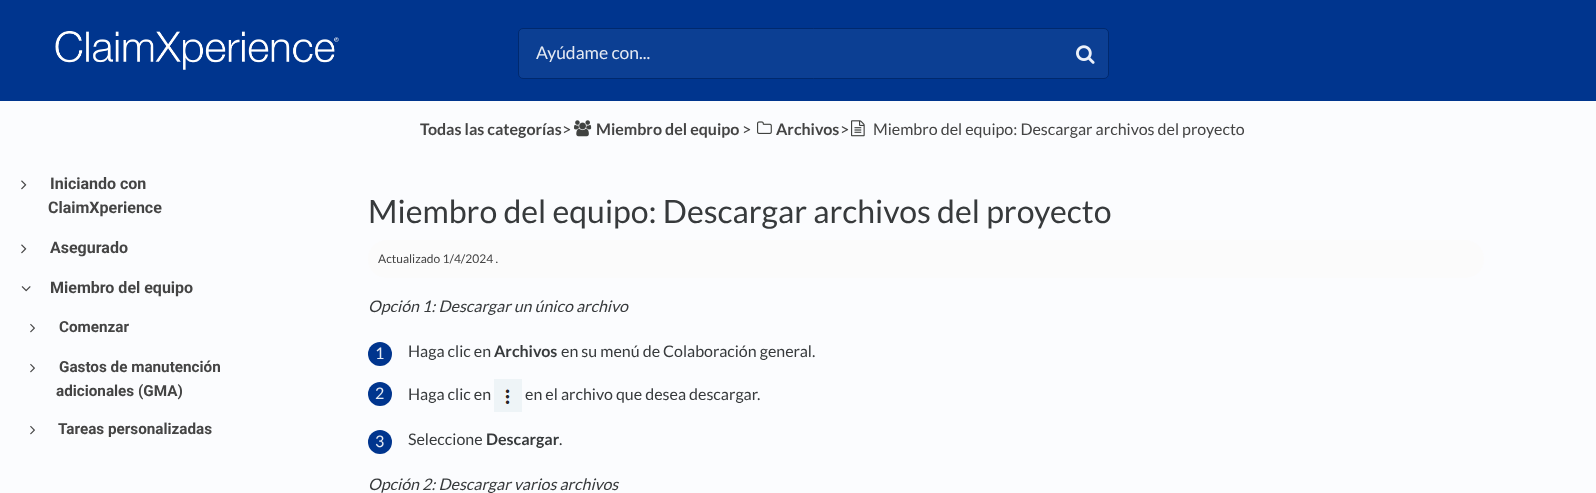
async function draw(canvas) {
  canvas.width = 1596
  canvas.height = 493
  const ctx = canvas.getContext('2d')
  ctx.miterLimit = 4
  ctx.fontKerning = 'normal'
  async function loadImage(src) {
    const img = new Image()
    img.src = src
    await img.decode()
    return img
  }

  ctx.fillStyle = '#fbfcfe'
  ctx.fillRect(0, 0, 1596, 493)
  ctx.fillStyle = '#00358e'
  ctx.fillRect(0, 0, 1596, 101)
  ctx.drawImage(await loadImage('image0.png'), 55, 31, 284, 39)
  ctx.fillStyle = '#0c3f93'
  ctx.beginPath()
  ctx.roundRect(518.5, 28.5, 590, 50, 4.5)
  ctx.fill()
  ctx.strokeStyle = '#00296e'
  ctx.stroke()
  ctx.font = '17.5px Lato'
  ctx.fillStyle = '#e5eaf3'
  ctx.fillText('Ayúdame con...', 536, 59)
  ctx.drawImage(await loadImage('image1.png'), 1076, 45, 19, 19)
  ctx.drawImage(await loadImage('image2.png'), 21, 180, 6, 10)
  ctx.font = 'bold 16px Roboto'
  ctx.fillStyle = '#444'
  ctx.fillText('Iniciando con', 50, 189)
  ctx.fillText('ClaimXperience', 48, 213)
  ctx.drawImage(await loadImage('image2.png'), 21, 244, 6, 10)
  ctx.fillText('Asegurado', 50, 253)
  ctx.drawImage(await loadImage('image3.png'), 21, 286, 10, 6)
  ctx.fillText('Miembro del equipo', 50, 293)
  ctx.drawImage(await loadImage('image4.png'), 30, 323, 5, 10)
  ctx.font = 'bold 15.25px Roboto'
  ctx.fillText('Comenzar', 59, 332)
  ctx.drawImage(await loadImage('image4.png'), 30, 363, 5, 10)
  ctx.fillText('Gastos de manutención', 59, 372)
  ctx.fillText('adicionales (GMA)', 56, 396)
  ctx.drawImage(await loadImage('image4.png'), 30, 425, 5, 10)
  ctx.fillText('Tareas personalizadas', 58, 434)
  ctx.font = 'bold 16px Lato'
  ctx.fillText('Todas las categorías', 420, 135)
  ctx.font = '16px Lato'
  ctx.fillText('>', 562, 135)
  ctx.drawImage(await loadImage('image5.png'), 574, 120, 18, 17)
  ctx.font = 'bold 16px Lato'
  ctx.fillText('Miembro del equipo', 596, 135)
  ctx.font = '16px Lato'
  ctx.fillText('>', 742, 135)
  ctx.drawImage(await loadImage('image6.png'), 757, 121, 15, 13)
  ctx.font = 'bold 16px Lato'
  ctx.fillText('Archivos', 776, 135)
  ctx.font = '16px Lato'
  ctx.fillText('>', 840, 135)
  ctx.drawImage(await loadImage('image7.png'), 851, 120, 14, 17)
  ctx.fillText('Miembro del equipo: Descargar archivos del proyecto', 873, 135)
  ctx.font = '32px Lato'
  ctx.fillStyle = '#373a3c'
  ctx.fillText('Miembro del equipo: Descargar archivos del proyecto', 368, 223)
  ctx.fillStyle = '#fbfbfb'
  ctx.beginPath()
  ctx.roundRect(368, 240, 1116, 38, 19)
  ctx.fill()
  ctx.font = '12px Lato'
  ctx.fillStyle = '#444'
  ctx.fillText('Actualizado 1/4/2024 .', 378, 263)
  ctx.font = 'italic 16px Lato'
  ctx.fillStyle = '#373a3c'
  ctx.fillText('Opción 1: Descargar un único archivo', 368, 312)
  ctx.fillStyle = '#00358e'
  ctx.beginPath()
  ctx.arc(380, 354, 12, 0, 2 * Math.PI)
  ctx.fill()
  ctx.font = '16px Lato'
  ctx.fillStyle = '#e5eaf3'
  ctx.fillText('1', 375, 359)
  ctx.fillStyle = '#373a3c'
  ctx.fillText('Haga clic en', 408, 357)
  ctx.font = 'bold 16px Lato'
  ctx.fillText('Archivos', 494, 357)
  ctx.font = '16px Lato'
  ctx.fillText('en su menú de Colaboración general.', 561, 357)
  ctx.fillStyle = '#00358e'
  ctx.beginPath()
  ctx.arc(380, 394, 12, 0, 2 * Math.PI)
  ctx.fill()
  ctx.fillStyle = '#e5eaf3'
  ctx.fillText('2', 375, 399)
  ctx.fillStyle = '#373a3c'
  ctx.fillText('Haga clic en', 408, 400)
  ctx.drawImage(await loadImage('image8.png'), 494, 379, 28, 33)
  ctx.fillText('en el archivo que desea descargar.', 525, 400)
  ctx.fillStyle = '#00358e'
  ctx.beginPath()
  ctx.arc(380, 442, 12, 0, 2 * Math.PI)
  ctx.fill()
  ctx.fillStyle = '#e5eaf3'
  ctx.fillText('3', 375, 447)
  ctx.fillStyle = '#373a3c'
  ctx.fillText('Seleccione', 408, 445)
  ctx.font = 'bold 16px Lato'
  ctx.fillText('Descargar', 486, 445)
  ctx.font = '16px Lato'
  ctx.fillText('.', 559, 445)
  ctx.font = 'italic 16px Lato'
  ctx.fillText('Opción 2: Descargar varios archivos', 368, 490)
}

draw(document.querySelector('canvas'))
